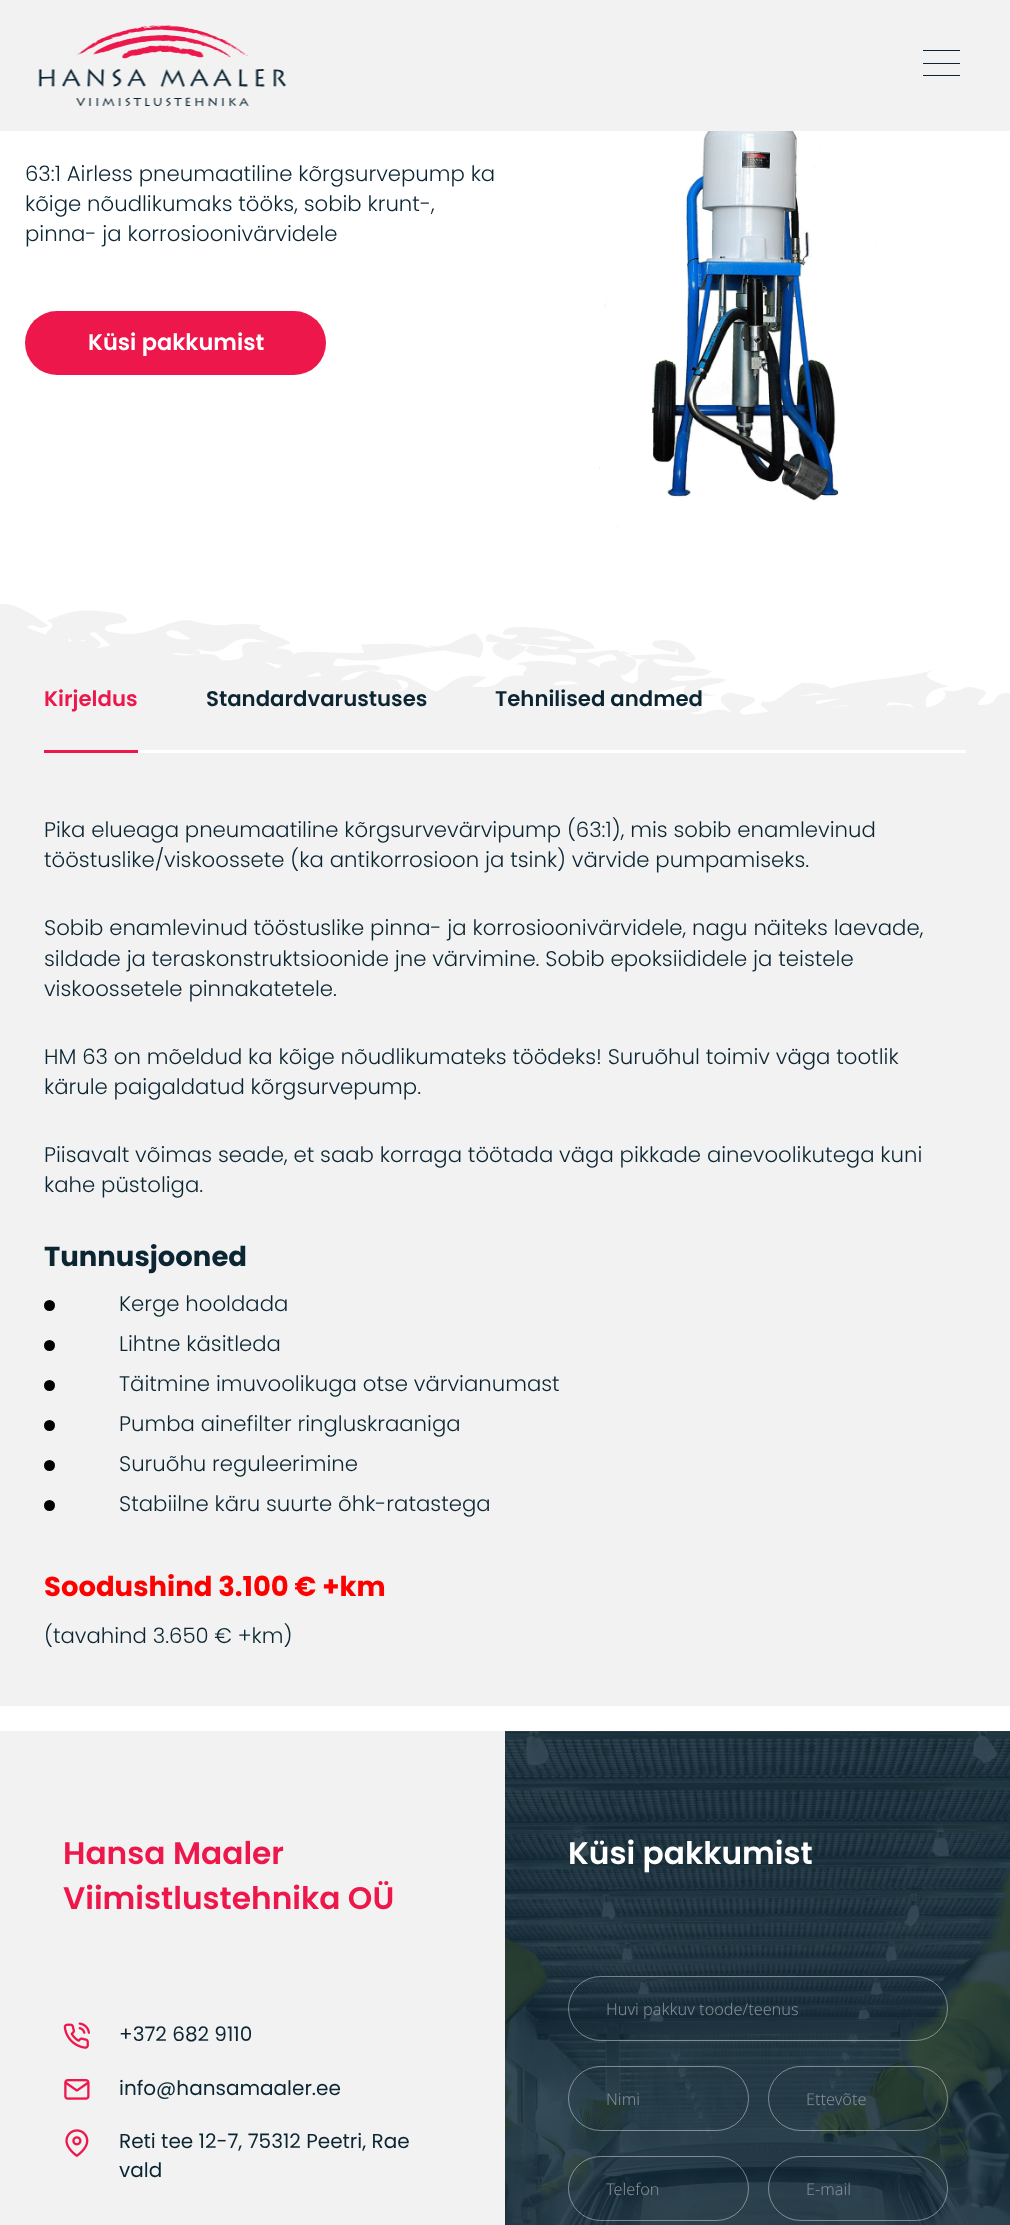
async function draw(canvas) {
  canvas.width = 1010
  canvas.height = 2225
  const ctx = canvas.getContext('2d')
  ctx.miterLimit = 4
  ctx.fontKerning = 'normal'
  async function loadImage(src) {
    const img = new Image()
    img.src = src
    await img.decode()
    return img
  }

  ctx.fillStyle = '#fff'
  ctx.fillRect(0, 0, 1010, 2225)
  ctx.fillStyle = '#344a56'
  ctx.fillRect(505, 1731, 505, 1)
  ctx.fillStyle = '#f2f2f2'
  ctx.fillRect(0, 0, 1010, 131)
  ctx.drawImage(await loadImage('image0.png'), 38, 25, 249, 81)
  ctx.fillStyle = '#0b2533'
  ctx.fillRect(923, 75, 37, 1)
  ctx.fillRect(923, 50, 37, 1)
  ctx.fillRect(923, 63, 37, 1)
  ctx.font = '300 21.25px Poppins'
  ctx.fillText('63:1 Airless pneumaatiline kõrgsurvepump ka', 25, 181)
  ctx.fillText('kõige nõudlikumaks tööks, sobib krunt-,', 25, 211)
  ctx.fillText('pinna- ja korrosioonivärvidele', 25, 241)
  ctx.fillStyle = '#ed174b'
  ctx.beginPath()
  ctx.roundRect(25, 311, 301, 64, 32)
  ctx.fill()
  ctx.font = '600 22.5px Poppins'
  ctx.fillStyle = '#fff'
  ctx.fillText('Küsi pakkumist', 88, 350)
  ctx.drawImage(await loadImage('image1.png'), 599, 131, 278, 397)
  ctx.fillStyle = '#f2f2f2'
  ctx.fillRect(0, 604, 1010, 1102)
  ctx.drawImage(await loadImage('image2.png'), 8, 604, 1002, 111)
  ctx.fillStyle = '#fff'
  ctx.fillRect(138, 750, 828, 3)
  ctx.fillStyle = '#ed174b'
  ctx.fillRect(44, 750, 94, 3)
  ctx.font = '600 21.25px Poppins'
  ctx.fillText('Kirjeldus', 44, 706)
  ctx.fillStyle = '#0b2533'
  ctx.fillText('Standardvarustuses', 206, 706)
  ctx.fillText('Tehnilised andmed', 495, 706)
  ctx.font = '300 21.25px Poppins'
  ctx.fillText('Pika elueaga pneumaatiline kõrgsurvevärvipump (63:1), mis sobib enamlevinud', 44, 837)
  ctx.fillText('tööstuslike/viskoossete (ka antikorrosioon ja tsink) värvide pumpamiseks.', 44, 867)
  ctx.fillText('Sobib enamlevinud tööstuslike pinna- ja korrosioonivärvidele, nagu näiteks laevade,', 44, 935)
  ctx.fillText('sildade ja teraskonstruktsioonide jne värvimine. Sobib epoksiididele ja teistele', 44, 966)
  ctx.fillText('viskoossetele pinnakatetele.', 44, 996)
  ctx.fillText('HM 63 on mõeldud ka kõige nõudlikumateks töödeks! Suruõhul toimiv väga tootlik', 44, 1064)
  ctx.fillText('kärule paigaldatud kõrgsurvepump.', 44, 1094)
  ctx.fillText('Piisavalt võimas seade, et saab korraga töötada väga pikkade ainevoolikutega kuni', 44, 1162)
  ctx.fillText('kahe püstoliga.', 44, 1192)
  ctx.font = 'bold 27.5px Poppins'
  ctx.fillText('Tunnusjooned', 44, 1266)
  ctx.fillStyle = '#000'
  ctx.beginPath()
  ctx.arc(49.5, 1305.5, 5.5, 0, 2 * Math.PI)
  ctx.fill()
  ctx.font = '300 21.25px Poppins'
  ctx.fillStyle = '#0b2533'
  ctx.fillText('Kerge hooldada', 119, 1311)
  ctx.fillStyle = '#000'
  ctx.beginPath()
  ctx.arc(49.5, 1345.5, 5.5, 0, 2 * Math.PI)
  ctx.fill()
  ctx.fillStyle = '#0b2533'
  ctx.fillText('Lihtne käsitleda', 119, 1351)
  ctx.fillStyle = '#000'
  ctx.beginPath()
  ctx.arc(49.5, 1385.5, 5.5, 0, 2 * Math.PI)
  ctx.fill()
  ctx.fillStyle = '#0b2533'
  ctx.fillText('Täitmine imuvoolikuga otse värvianumast', 119, 1391)
  ctx.fillStyle = '#000'
  ctx.beginPath()
  ctx.arc(49.5, 1425.5, 5.5, 0, 2 * Math.PI)
  ctx.fill()
  ctx.fillStyle = '#0b2533'
  ctx.fillText('Pumba ainefilter ringluskraaniga', 119, 1431)
  ctx.fillStyle = '#000'
  ctx.beginPath()
  ctx.arc(49.5, 1465.5, 5.5, 0, 2 * Math.PI)
  ctx.fill()
  ctx.fillStyle = '#0b2533'
  ctx.fillText('Suruõhu reguleerimine', 119, 1471)
  ctx.fillStyle = '#000'
  ctx.beginPath()
  ctx.arc(49.5, 1505.5, 5.5, 0, 2 * Math.PI)
  ctx.fill()
  ctx.fillStyle = '#0b2533'
  ctx.fillText('Stabiilne käru suurte õhk-ratastega', 119, 1511)
  ctx.font = 'bold 27.5px Poppins'
  ctx.fillStyle = '#f00'
  ctx.fillText('Soodushind 3.100 € +km', 44, 1596)
  ctx.font = '300 21.25px Poppins'
  ctx.fillStyle = '#0b2533'
  ctx.fillText('(tavahind 3.650 € +km)', 44, 1643)
  ctx.fillStyle = '#f2f2f2'
  ctx.fillRect(0, 1731, 505, 494)
  ctx.font = '600 31.25px Poppins'
  ctx.fillStyle = '#ed174b'
  ctx.fillText('Hansa Maaler', 63, 1864)
  ctx.fillText('Viimistlustehnika OÜ', 63, 1909)
  ctx.drawImage(await loadImage('image3.png'), 63, 2022, 27, 27)
  ctx.font = '20px Poppins'
  ctx.fillStyle = '#0b2533'
  ctx.fillText('+372 682 9110', 119, 2041)
  ctx.drawImage(await loadImage('image4.png'), 64, 2079, 26, 21)
  ctx.fillText('info@hansamaaler.ee', 119, 2095)
  ctx.drawImage(await loadImage('image5.png'), 65, 2129, 24, 28)
  ctx.fillText('Reti tee 12-7, 75312 Peetri, Rae', 119, 2148)
  ctx.fillText('vald', 119, 2177)
  ctx.drawImage(await loadImage('image6.png'), 505, 1731, 505, 494)
  ctx.font = '600 31.25px Poppins'
  ctx.fillStyle = '#fff'
  ctx.fillText('Küsi pakkumist', 568, 1864)
  ctx.beginPath()
  ctx.roundRect(568.5, 1976.5, 379, 64, 32)
  ctx.strokeStyle = '#ffffff69'
  ctx.stroke()
  ctx.font = '300 16.25px Noto Sans'
  ctx.fillStyle = '#868e96'
  ctx.fillText('Huvi pakkuv toode/teenus', 606, 2015)
  ctx.beginPath()
  ctx.roundRect(568.5, 2066.5, 180, 64, 32)
  ctx.stroke()
  ctx.fillText('Nimi', 606, 2105)
  ctx.beginPath()
  ctx.roundRect(768.5, 2066.5, 179, 64, 32)
  ctx.stroke()
  ctx.fillText('Ettevõte', 806, 2105)
  ctx.beginPath()
  ctx.roundRect(568.5, 2156.5, 180, 64, 32)
  ctx.stroke()
  ctx.fillText('Telefon', 606, 2195)
  ctx.beginPath()
  ctx.roundRect(768.5, 2156.5, 179, 64, 32)
  ctx.stroke()
  ctx.fillText('E-mail', 806, 2195)
}

draw(document.querySelector('canvas'))
